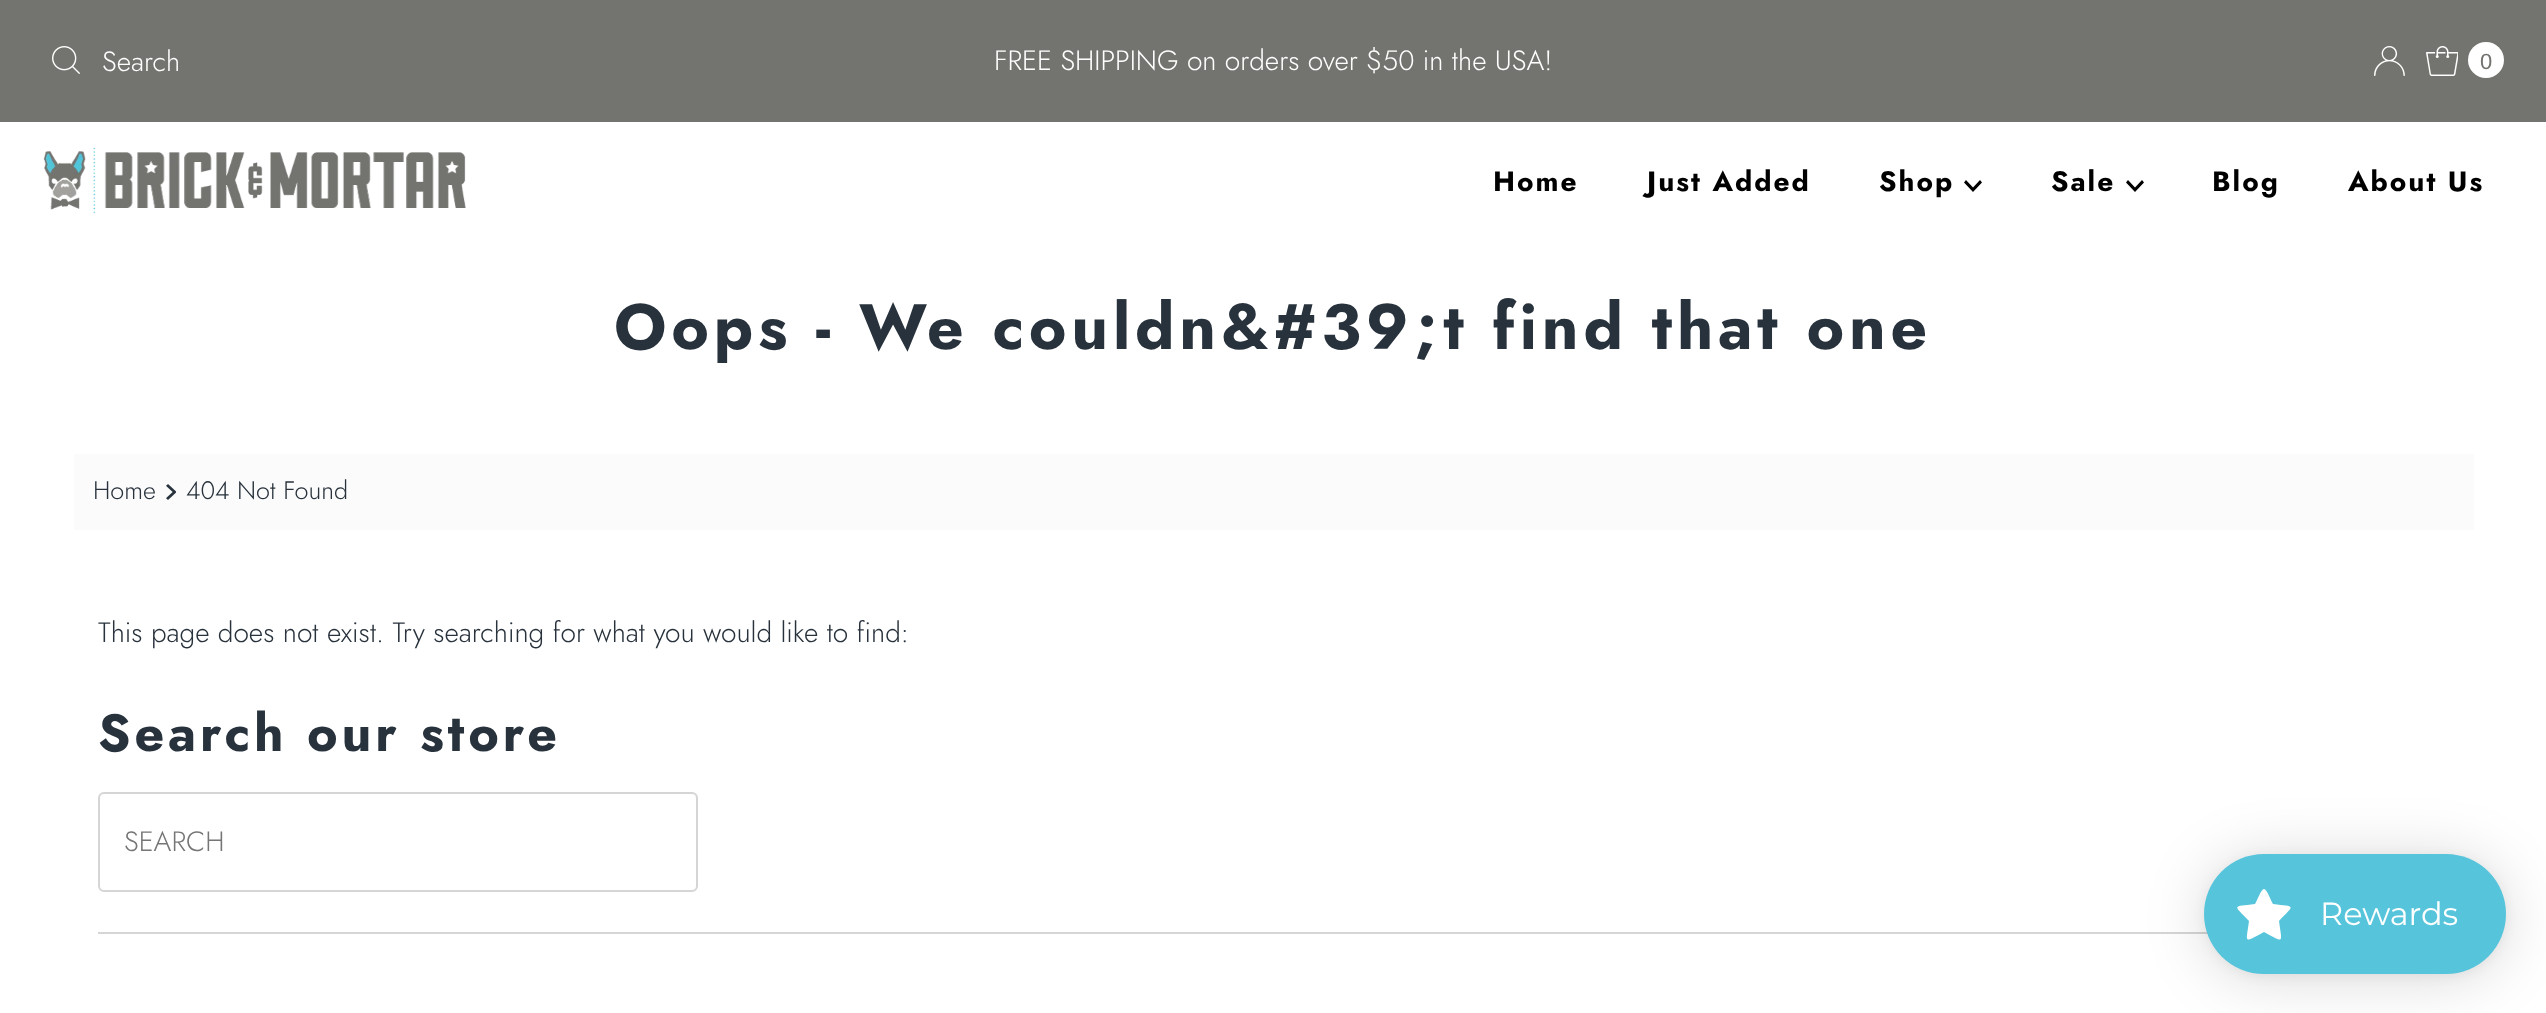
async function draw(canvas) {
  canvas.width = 2546
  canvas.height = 1013
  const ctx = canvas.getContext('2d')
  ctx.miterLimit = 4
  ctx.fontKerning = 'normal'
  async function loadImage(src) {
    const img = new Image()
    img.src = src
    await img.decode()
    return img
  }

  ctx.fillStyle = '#fff'
  ctx.fillRect(0, 0, 2546, 1013)
  ctx.fillStyle = '#73736f'
  ctx.fillRect(0, 0, 2546, 122)
  ctx.drawImage(await loadImage('image0.png'), 52, 46, 28, 28)
  ctx.font = '300 28px Jost'
  ctx.fillStyle = '#fff'
  ctx.fillText('Search', 102, 71)
  ctx.fillText('FREE SHIPPING on orders over $50 in the USA!', 994, 70)
  ctx.drawImage(await loadImage('image1.png'), 2374, 46, 31, 30)
  ctx.drawImage(await loadImage('image2.png'), 2426, 46, 32, 30)
  ctx.beginPath()
  ctx.arc(2486, 60, 18, 0, 2 * Math.PI)
  ctx.fill()
  ctx.font = '22px Liberation Sans'
  ctx.fillStyle = '#73736f'
  ctx.fillText('0', 2480, 69)
  ctx.drawImage(await loadImage('image3.png'), 43, 147, 423, 67)
  ctx.letterSpacing = '2px'
  ctx.font = 'bold 28px Jost'
  ctx.fillStyle = '#000'
  ctx.fillText('Home', 1493, 191)
  ctx.fillText('Just Added', 1647, 191)
  ctx.fillText('Shop', 1879, 191)
  ctx.beginPath()
  ctx.moveTo(1980, 180)
  ctx.lineTo(1973, 187.5)
  ctx.lineTo(1966, 180)
  ctx.lineTo(1964, 182.5)
  ctx.lineTo(1973, 192)
  ctx.lineTo(1982, 182.5)
  ctx.closePath()
  ctx.fill()
  ctx.fillText('Sale', 2051, 191)
  ctx.beginPath()
  ctx.moveTo(2142, 180)
  ctx.lineTo(2135, 187.5)
  ctx.lineTo(2128, 180)
  ctx.lineTo(2126, 182.5)
  ctx.lineTo(2135, 192)
  ctx.lineTo(2144, 182.5)
  ctx.closePath()
  ctx.fill()
  ctx.fillText('Blog', 2212, 191)
  ctx.fillText('About Us', 2348, 191)
  ctx.letterSpacing = '4.8px'
  ctx.font = 'bold 64px Jost'
  ctx.fillStyle = '#28323c'
  ctx.fillText('Oops - We couldn&#39;t find that one', 614, 349)
  ctx.fillStyle = '#fbfbfb'
  ctx.fillRect(74, 454, 2400, 76)
  ctx.letterSpacing = '0px'
  ctx.font = '300 25.25px Jost'
  ctx.fillStyle = '#28323c'
  ctx.fillText('Home', 93, 499)
  ctx.drawImage(await loadImage('image4.png'), 166, 484, 10, 16)
  ctx.fillText('404 Not Found', 186, 499)
  ctx.font = '300 28px Jost'
  ctx.fillText('This page does not exist. Try searching for what you would like to find:', 98, 642)
  ctx.fillStyle = '#d5d5d5'
  ctx.fillRect(98, 932, 2110, 2)
  ctx.letterSpacing = '3.9px'
  ctx.font = 'bold 52px Jost'
  ctx.fillStyle = '#28323c'
  ctx.fillText('Search our store', 98, 751)
  ctx.beginPath()
  ctx.roundRect(99, 793, 598, 98, 5)
  ctx.strokeStyle = '#d5d5d5'
  ctx.lineWidth = 2
  ctx.stroke()
  ctx.letterSpacing = '0px'
  ctx.font = '300 28px Jost'
  ctx.fillStyle = '#757575'
  ctx.fillText('SEARCH', 124, 851)
  ctx.fillStyle = '#00000026'
  ctx.filter = 'blur(30px)'
  ctx.beginPath()
  ctx.roundRect(2204, 858, 302, 120, 60)
  ctx.fill()
  ctx.filter = 'none'
  ctx.fillStyle = '#0000000d'
  ctx.filter = 'blur(6px)'
  ctx.beginPath()
  ctx.roundRect(2204, 856, 302, 120, 60)
  ctx.fill()
  ctx.filter = 'none'
  ctx.fillStyle = '#56c5db'
  ctx.beginPath()
  ctx.roundRect(2204, 854, 302, 120, 60)
  ctx.fill()
  ctx.fillStyle = '#fff'
  ctx.beginPath()
  ctx.moveTo(2264, 889)
  ctx.bezierCurveTo(2261, 889, 2257, 901, 2255, 904)
  ctx.bezierCurveTo(2232, 907, 2233, 904, 2249, 921)
  ctx.bezierCurveTo(2246, 944, 2243, 943, 2264, 932)
  ctx.bezierCurveTo(2285, 943, 2282, 944, 2279, 921)
  ctx.bezierCurveTo(2295, 904, 2296, 907, 2273, 904)
  ctx.bezierCurveTo(2271, 901, 2267, 889, 2264, 889)
  ctx.closePath()
  ctx.fill()
  ctx.font = '100 32px Montserrat'
  ctx.fillText('Rewards', 2320, 925)
}

draw(document.querySelector('canvas'))
